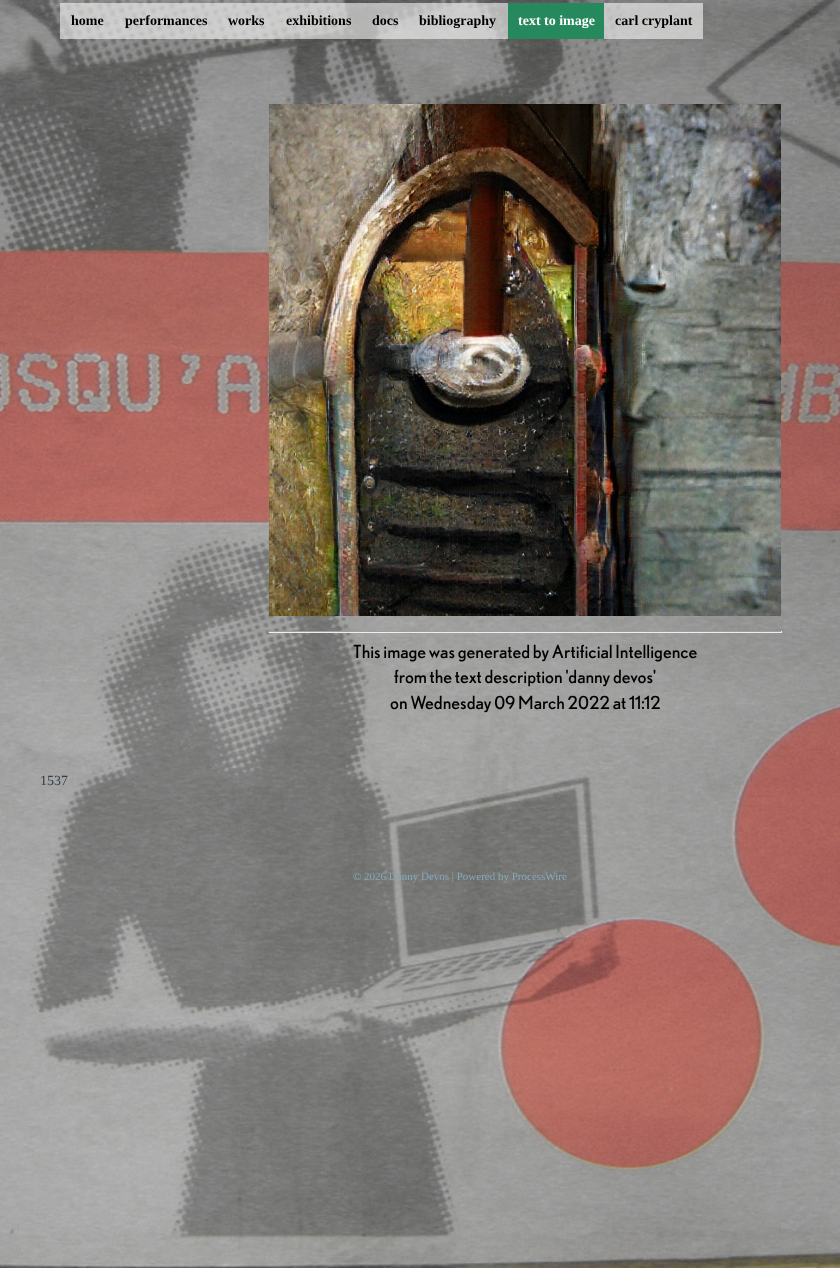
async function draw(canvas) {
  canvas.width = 840
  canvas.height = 1268
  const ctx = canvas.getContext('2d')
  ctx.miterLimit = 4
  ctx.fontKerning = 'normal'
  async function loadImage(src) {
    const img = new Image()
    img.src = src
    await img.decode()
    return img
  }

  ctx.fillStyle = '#fff'
  ctx.fillRect(0, 0, 840, 1268)
  ctx.drawImage(await loadImage('image0.png'), 0, 0, 840, 1268)
  ctx.fillStyle = '#f8f8f899'
  ctx.fillRect(60, 3, 643, 36)
  ctx.font = 'bold 14px Liberation Serif'
  ctx.fillStyle = '#000'
  ctx.fillText('home', 71, 25)
  ctx.fillText('performances', 125, 25)
  ctx.fillText('works', 228, 25)
  ctx.fillText('exhibitions', 286, 25)
  ctx.fillText('docs', 372, 25)
  ctx.fillText('bibliography', 419, 25)
  ctx.fillStyle = '#26895e'
  ctx.fillRect(508, 3, 96, 36)
  ctx.fillStyle = '#fff'
  ctx.fillText('text to image', 518, 25)
  ctx.fillStyle = '#000'
  ctx.fillText('carl cryplant', 615, 25)
  ctx.drawImage(await loadImage('image1.png'), 269, 104, 512, 512)
  ctx.fillStyle = '#9f9f9f'
  ctx.fillRect(268, 631, 514, 1)
  ctx.fillStyle = '#eee'
  ctx.fillRect(781, 631, 1, 2)
  ctx.fillRect(268, 632, 514, 1)
  ctx.fillStyle = '#9f9f9f'
  ctx.fillRect(268, 631, 1, 2)
  ctx.font = '18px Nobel'
  ctx.fillStyle = '#000'
  ctx.fillText('This image was generated by Artificial Intelligence', 353, 658)
  ctx.fillText('from the text description \'danny devos\'', 394, 683)
  ctx.fillText('on Wednesday 09 March 2022 at 11:12', 390, 709)
  ctx.font = '14px Liberation Serif'
  ctx.fillStyle = '#2f4248'
  ctx.fillText('1537', 40, 785)
  ctx.font = '11px Liberation Serif'
  ctx.fillStyle = '#85aaba'
  ctx.fillText('© 2026 Danny Devos | Powered by ProcessWire', 353, 880)
}

draw(document.querySelector('canvas'))
